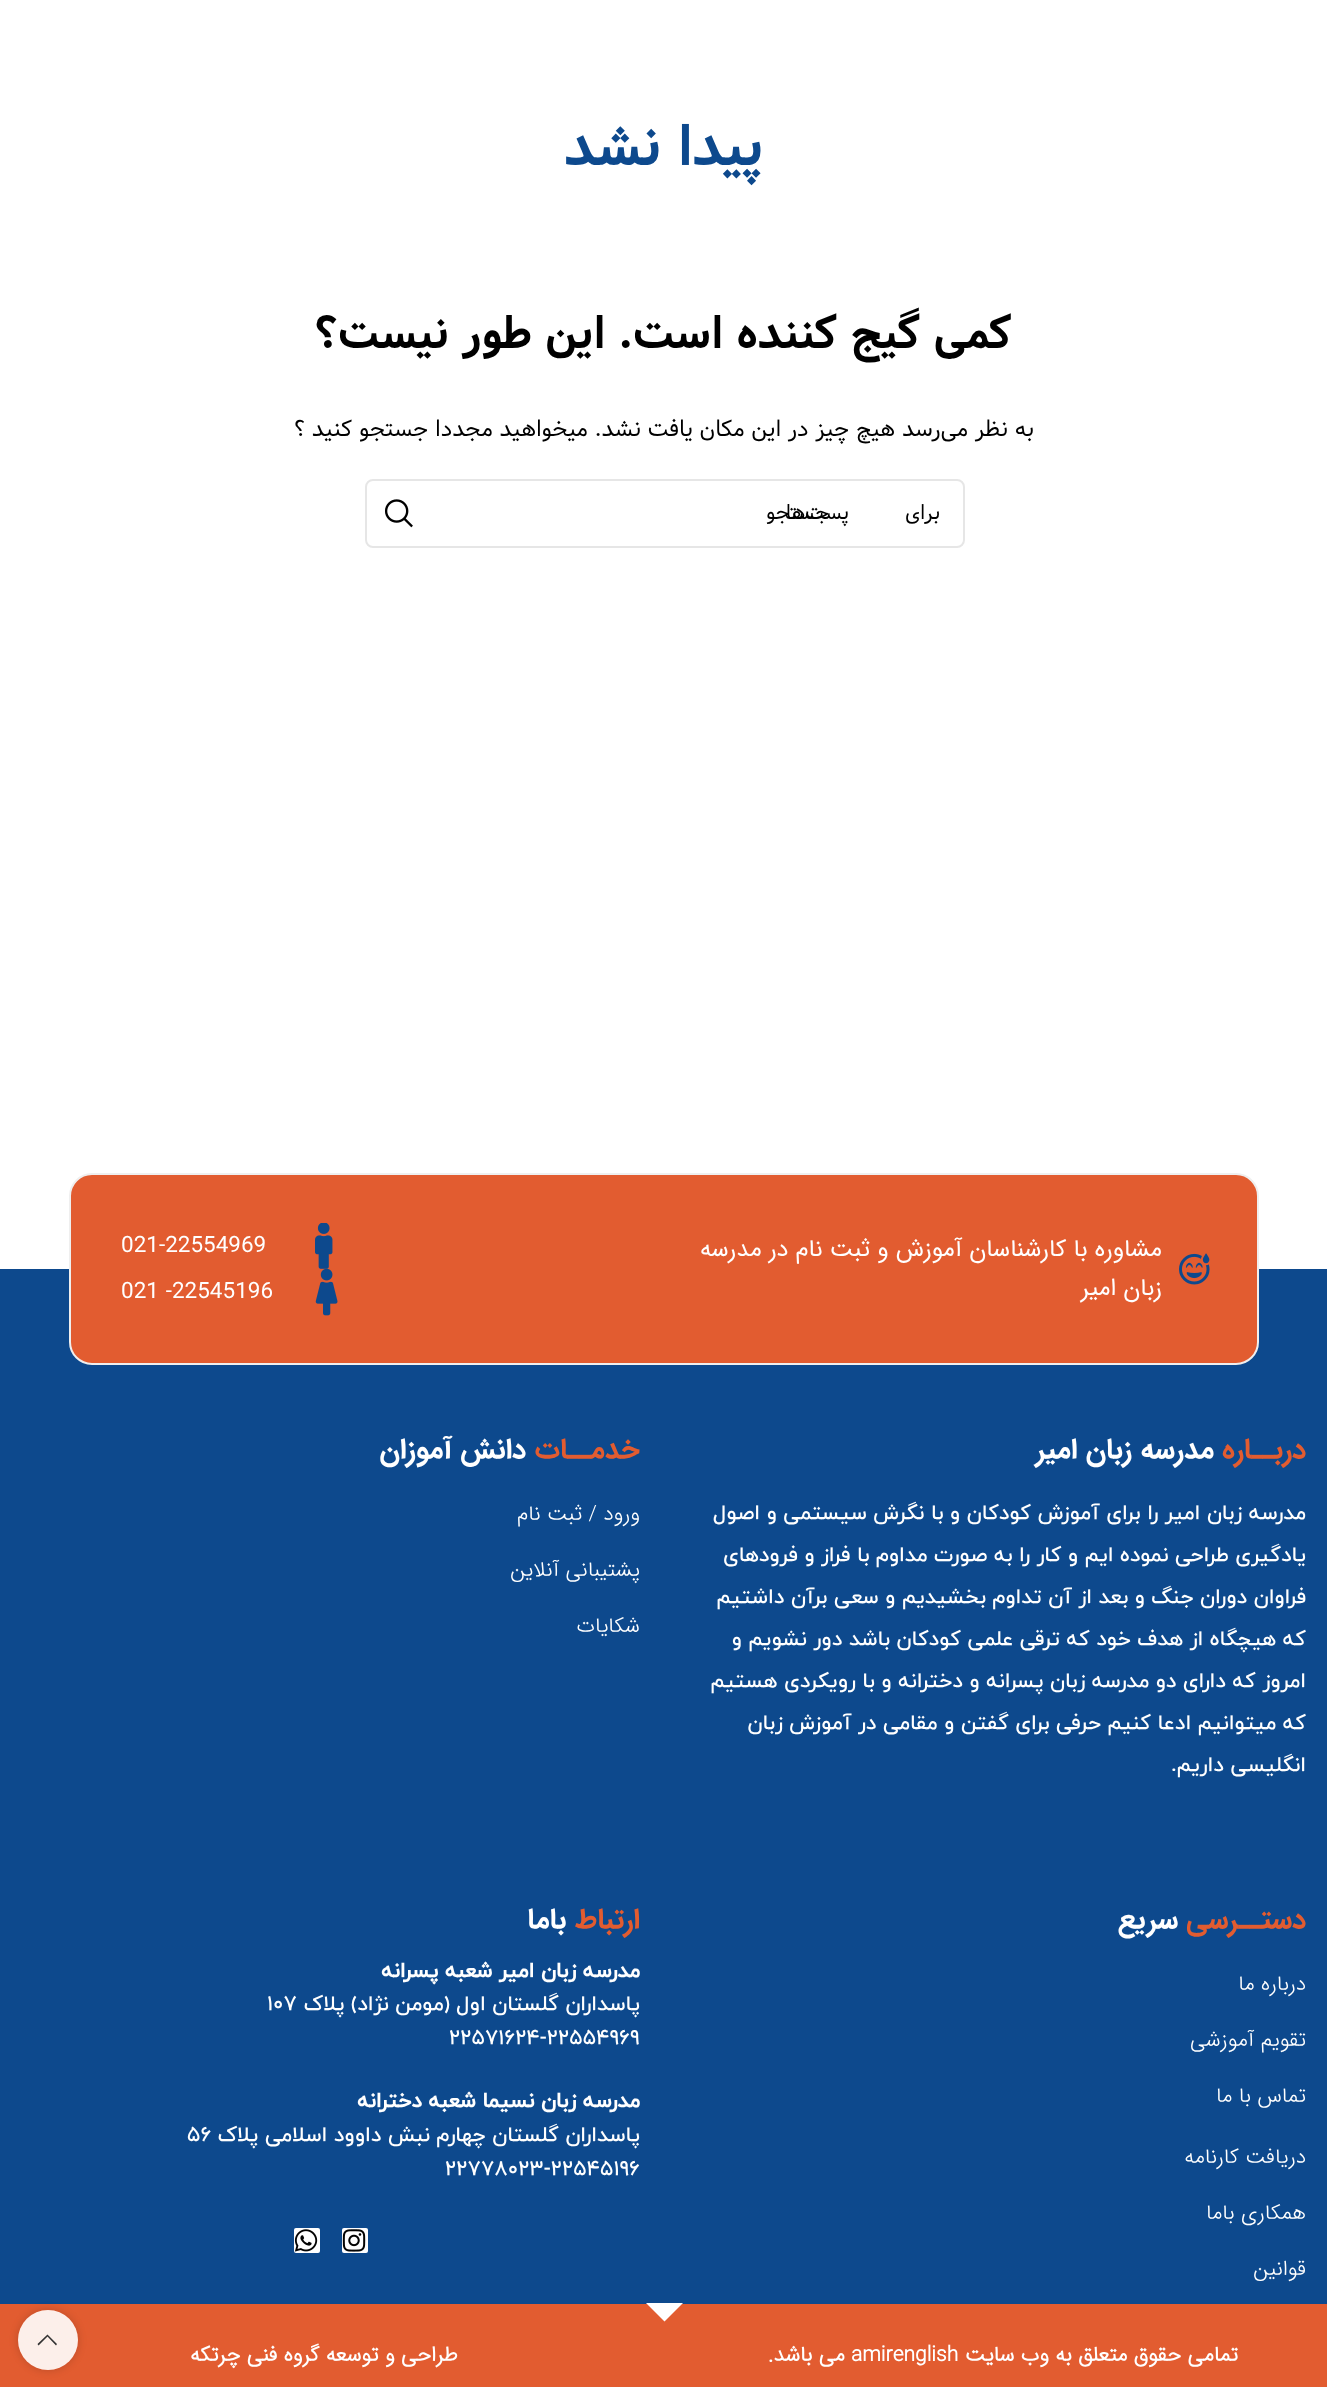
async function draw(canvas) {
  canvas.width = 1327
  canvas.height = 2387
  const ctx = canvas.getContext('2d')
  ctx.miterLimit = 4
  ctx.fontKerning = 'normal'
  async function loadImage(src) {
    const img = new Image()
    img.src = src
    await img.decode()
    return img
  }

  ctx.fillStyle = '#fff'
  ctx.fillRect(0, 0, 1327, 2387)
  ctx.direction = 'rtl'
  ctx.font = 'bold 56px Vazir'
  ctx.fillStyle = '#0d498d'
  ctx.fillText('پیدا نشد', 763, 165)
  ctx.font = 'bold 45px Vazir'
  ctx.fillStyle = '#000'
  ctx.fillText('کمی گیج کننده است. این طور نیست؟', 1012, 348)
  ctx.font = '23.1px Vazir'
  ctx.fillText('به نظر می‌رسد هیچ چیز در این مکان یافت نشد. میخواهید مجددا جستجو کنید ؟', 1034, 436)
  ctx.beginPath()
  ctx.roundRect(366, 480, 598, 67, 7)
  ctx.strokeStyle = '#e6e6e6'
  ctx.lineWidth = 2
  ctx.stroke()
  ctx.font = '21px Vazir'
  ctx.fillText('جستجو', 829, 519)
  ctx.wordSpacing = '50px'
  ctx.fillText('برای پست‌ها', 940, 519)
  ctx.drawImage(await loadImage('image0.png'), 385, 499, 28, 29)
  ctx.fillStyle = '#0d498d'
  ctx.fillRect(0, 1269, 1327, 1035)
  ctx.fillStyle = '#e25c30'
  ctx.beginPath()
  ctx.roundRect(70, 1174, 1188, 190, 22)
  ctx.fill()
  ctx.strokeStyle = '#efefef'
  ctx.stroke()
  ctx.drawImage(await loadImage('image1.png'), 1179, 1253, 31, 32)
  ctx.wordSpacing = '0px'
  ctx.font = '24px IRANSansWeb'
  ctx.fillStyle = '#fff'
  ctx.fillText('مشاوره با کارشناسان آموزش و ثبت نام در مدرسه', 1162, 1256)
  ctx.fillText('زبان امیر', 1162, 1295)
  ctx.drawImage(await loadImage('image2.png'), 315, 1223, 18, 46)
  ctx.direction = 'ltr'
  ctx.font = '22.5px IRANSansWeb'
  ctx.fillText('021-22554969', 121, 1252)
  ctx.drawImage(await loadImage('image3.png'), 315, 1268, 23, 48)
  ctx.fillText('021 -22545196', 121, 1298)
  ctx.direction = 'rtl'
  ctx.font = 'bold 28.5px IRANSansWeb'
  ctx.fillStyle = '#e25c30'
  ctx.fillText('دربــاره', 1306, 1458)
  ctx.fillStyle = '#fff'
  ctx.fillText('مدرسه زبان امیر', 1214, 1458)
  ctx.font = '500 21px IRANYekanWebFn'
  ctx.fillText('مدرسه زبان امیر را برای آموزش کودکان و با نگرش سیستمی و اصول', 1306, 1519)
  ctx.fillText('یادگیری طراحی نموده ایم و کار را به صورت مداوم با فراز و فرودهای', 1306, 1561)
  ctx.fillText('فراوان دوران جنگ و بعد از آن تداوم بخشیدیم و سعی برآن داشتیم', 1306, 1603)
  ctx.fillText('که هیچگاه از هدف خود که ترقی علمی کودکان باشد دور نشویم و', 1306, 1645)
  ctx.fillText('امروز که دارای دو مدرسه زبان پسرانه و دخترانه و با رویکردی هستیم', 1306, 1687)
  ctx.fillText('که میتوانیم ادعا کنیم حرفی برای گفتن و مقامی در آموزش زبان', 1306, 1729)
  ctx.fillText('انگلیسی داریم.', 1306, 1771)
  ctx.font = 'bold 28.5px IRANSansWeb'
  ctx.fillStyle = '#e25c30'
  ctx.fillText('خدمــات', 640, 1458)
  ctx.fillStyle = '#fff'
  ctx.fillText('دانش آموزان', 526, 1458)
  ctx.font = '300 21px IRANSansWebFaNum'
  ctx.fillText('ورود / ثبت نام', 640, 1520)
  ctx.fillText('پشتیبانی آنلاین', 640, 1576)
  ctx.fillText('شکایات', 640, 1632)
  ctx.font = 'bold 28.5px IRANSansWeb'
  ctx.fillStyle = '#e25c30'
  ctx.fillText('دستــرسی', 1306, 1928)
  ctx.fillStyle = '#fff'
  ctx.fillText('سریع', 1178, 1928)
  ctx.font = '300 21px IRANSansWebFaNum'
  ctx.fillText('درباره ما', 1306, 1990)
  ctx.fillText('تقویم آموزشی', 1306, 2046)
  ctx.fillText('تماس با ما', 1306, 2102)
  ctx.fillText('دریافت کارنامه', 1306, 2163)
  ctx.fillText('همکاری باما', 1306, 2219)
  ctx.fillText('قوانین', 1306, 2275)
  ctx.font = 'bold 28.5px IRANSansWeb'
  ctx.fillStyle = '#e25c30'
  ctx.fillText('ارتباط', 640, 1928)
  ctx.fillStyle = '#fff'
  ctx.fillText('باما', 566, 1928)
  ctx.font = 'bold 21px IRANYekanWebFn'
  ctx.fillText('مدرسه زبان امیر شعبه پسرانه', 640, 1977)
  ctx.font = '500 21px IRANYekanWebFn'
  ctx.fillText('پاسداران گلستان اول (مومن نژاد) پلاک', 640, 2010)
  ctx.direction = 'ltr'
  ctx.fillText('۱۰۷', 267, 2010)
  ctx.fillText('۲۲۵۷۱۶۲۴-۲۲۵۵۴۹۶۹', 449, 2044)
  ctx.direction = 'rtl'
  ctx.font = 'bold 21px IRANYekanWebFn'
  ctx.fillText('مدرسه زبان نسیما شعبه دخترانه', 640, 2107)
  ctx.font = '500 21px IRANYekanWebFn'
  ctx.fillText('پاسداران گلستان چهارم نبش داوود اسلامی پلاک', 640, 2141)
  ctx.direction = 'ltr'
  ctx.fillText('۵۶', 187, 2141)
  ctx.fillText('۲۲۷۷۸۰۲۳-۲۲۵۴۵۱۹۶', 445, 2175)
  ctx.beginPath()
  ctx.roundRect(342, 2228, 26, 25, 2)
  ctx.fill()
  ctx.drawImage(await loadImage('image4.png'), 342, 2229, 24, 23)
  ctx.beginPath()
  ctx.roundRect(294, 2228, 26, 25, 2)
  ctx.fill()
  ctx.drawImage(await loadImage('image5.png'), 294, 2229, 24, 23)
  ctx.fillStyle = '#e25c30'
  ctx.fillRect(0, 2304, 1327, 83)
  ctx.save()
  ctx.beginPath()
  ctx.rect(0, 2303, 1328, 19)
  ctx.clip()
  ctx.fillStyle = '#fff'
  ctx.beginPath()
  ctx.moveTo(664.5, 2321.5)
  ctx.lineTo(645.5, 2302.5)
  ctx.lineTo(683.5, 2302.5)
  ctx.closePath()
  ctx.fill()
  ctx.restore()
  ctx.direction = 'rtl'
  ctx.font = 'bold 21px IRANSansWebFaNum'
  ctx.fillStyle = '#fff'
  ctx.fillText('تمامی حقوق متعلق به وب سایت', 1238, 2361)
  ctx.direction = 'ltr'
  ctx.fillText('amirenglish', 851, 2361)
  ctx.direction = 'rtl'
  ctx.fillText('می باشد.', 845, 2361)
  ctx.fillText('طراحی و توسعه گروه فنی چرتکه', 458, 2361)
  ctx.save()
  ctx.beginPath()
  ctx.moveTo(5, 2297)
  ctx.lineTo(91, 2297)
  ctx.lineTo(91, 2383)
  ctx.lineTo(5, 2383)
  ctx.closePath()
  ctx.moveTo(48, 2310)
  ctx.bezierCurveTo(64.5, 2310, 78, 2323.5, 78, 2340)
  ctx.bezierCurveTo(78, 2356.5, 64.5, 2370, 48, 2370)
  ctx.bezierCurveTo(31.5, 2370, 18, 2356.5, 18, 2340)
  ctx.bezierCurveTo(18, 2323.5, 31.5, 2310, 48, 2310)
  ctx.closePath()
  ctx.clip('evenodd')
  ctx.fillStyle = '#0000002b'
  ctx.filter = 'blur(4px)'
  ctx.beginPath()
  ctx.roundRect(18, 2310, 60, 60, 30)
  ctx.fill()
  ctx.filter = 'none'
  ctx.restore()
  ctx.fillStyle = '#ffffffe6'
  ctx.beginPath()
  ctx.arc(48, 2340, 30, 0, 2 * Math.PI)
  ctx.fill()
  ctx.fillStyle = '#333'
  ctx.beginPath()
  ctx.moveTo(56, 2345.5)
  ctx.lineTo(57, 2344)
  ctx.lineTo(47.5, 2334.5)
  ctx.lineTo(37.5, 2344)
  ctx.lineTo(38.5, 2345.5)
  ctx.lineTo(47.5, 2336.5)
  ctx.closePath()
  ctx.fill()
}

draw(document.querySelector('canvas'))
